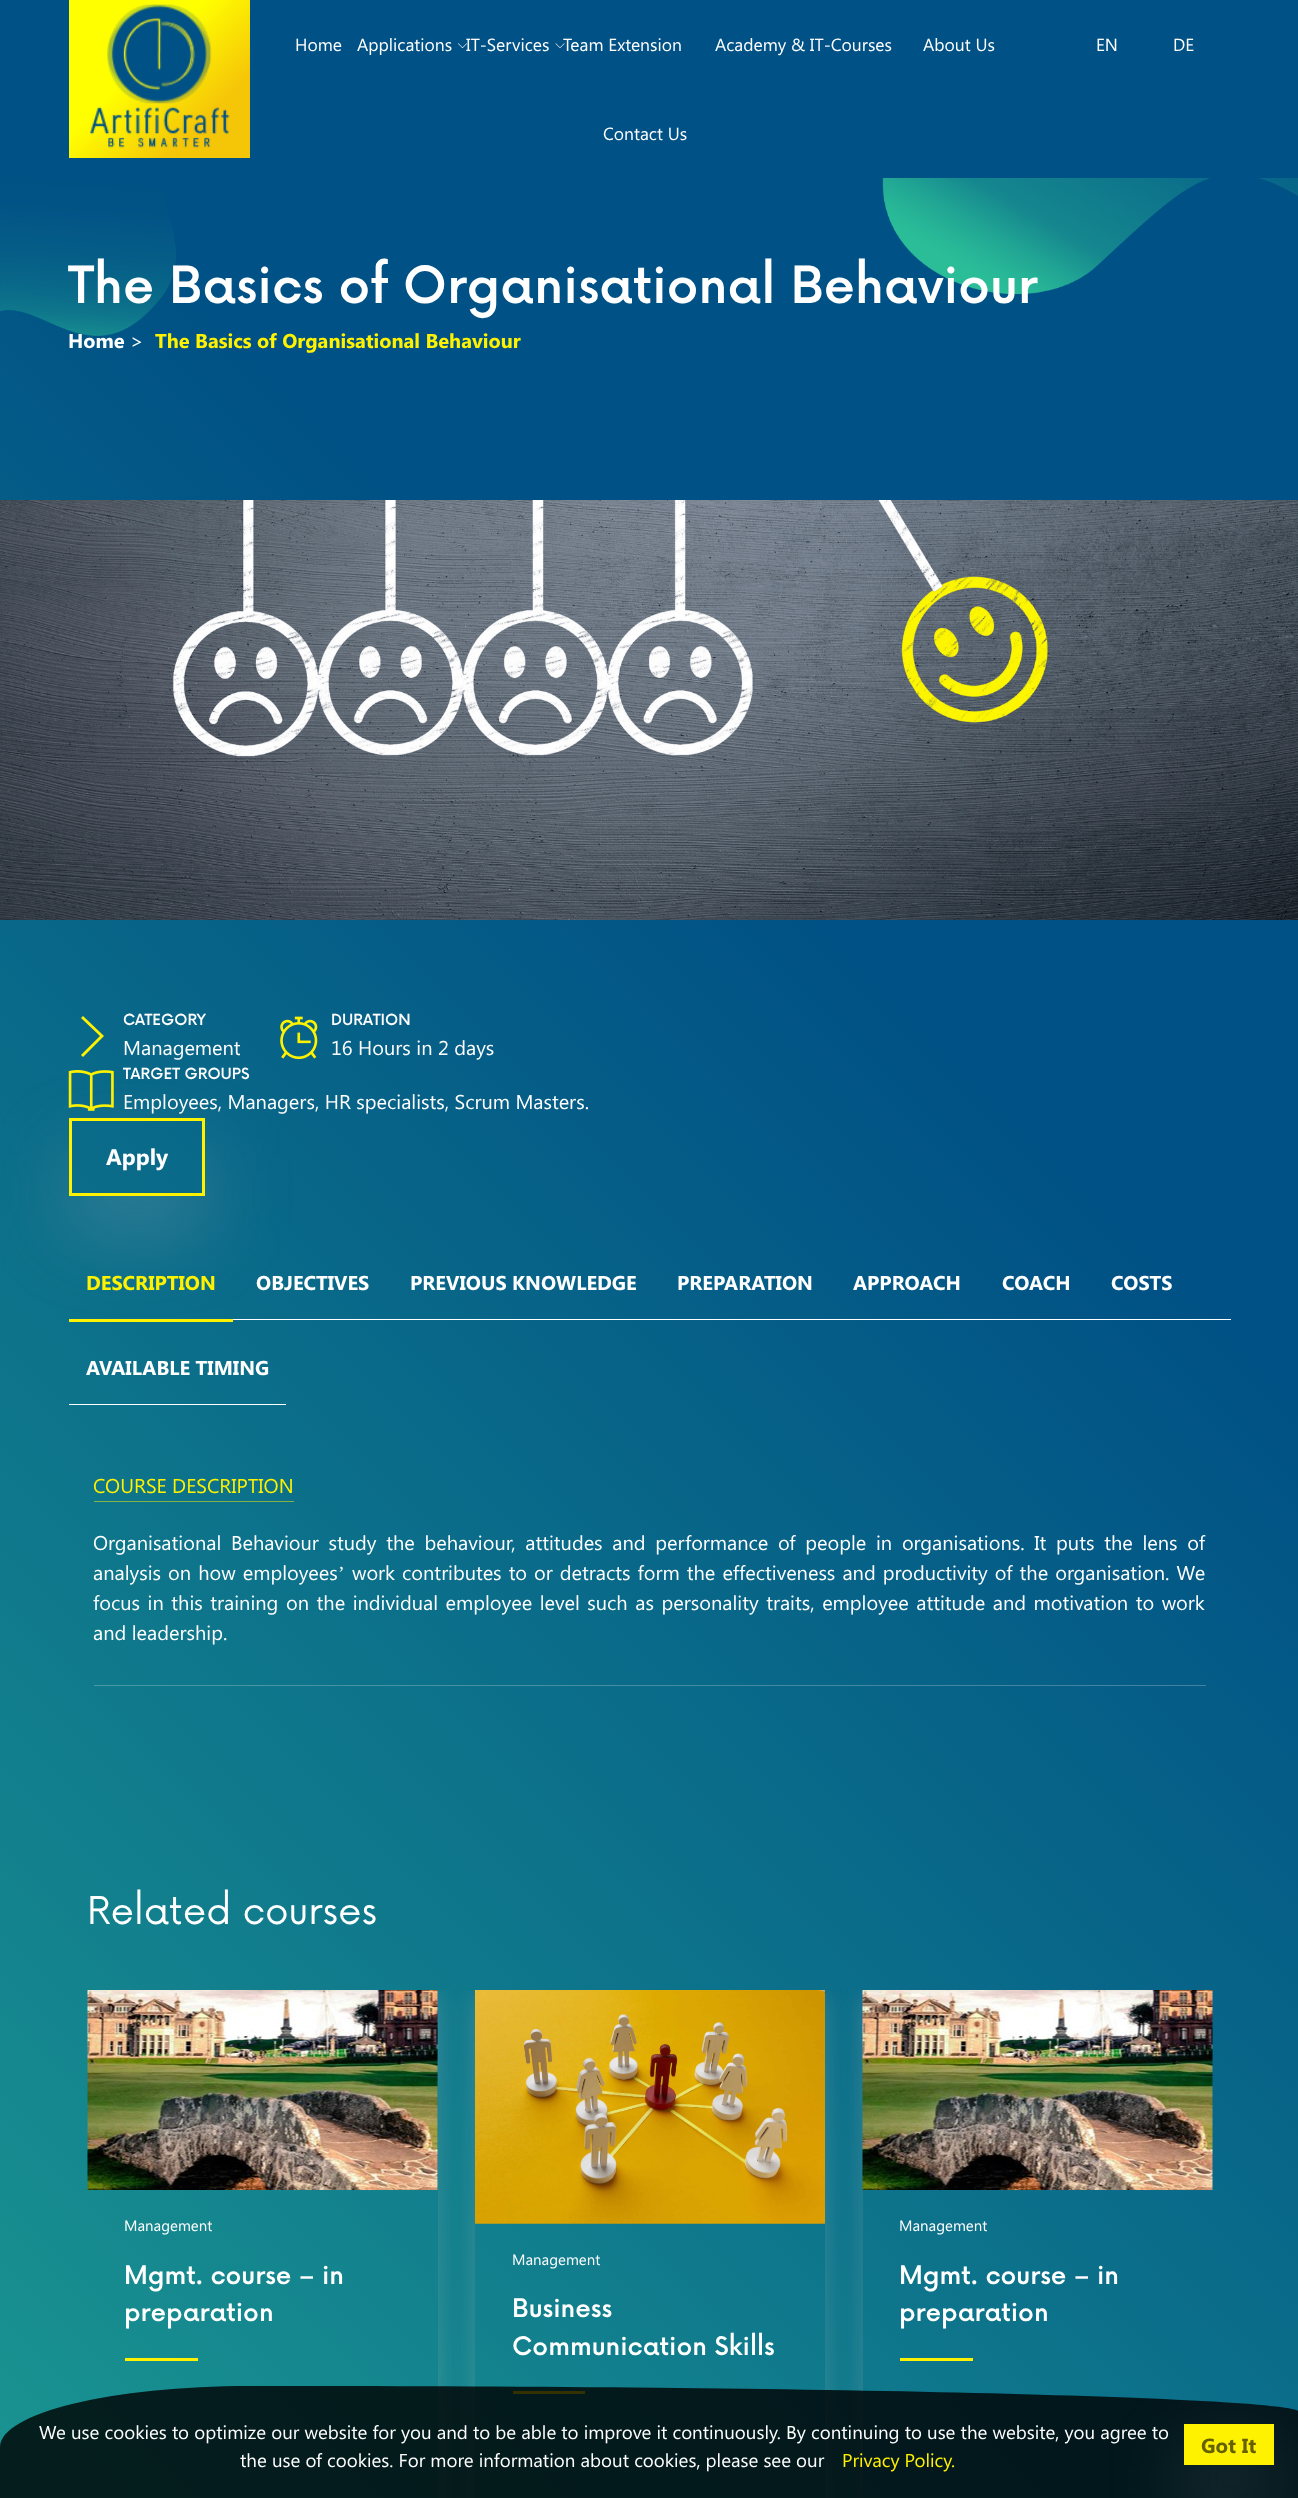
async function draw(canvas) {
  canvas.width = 1298
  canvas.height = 2498
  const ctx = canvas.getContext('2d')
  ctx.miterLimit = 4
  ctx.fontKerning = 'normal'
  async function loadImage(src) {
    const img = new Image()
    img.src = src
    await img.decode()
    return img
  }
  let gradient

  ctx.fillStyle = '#fff'
  ctx.fillRect(0, 0, 1298, 2498)
  gradient = ctx.createLinearGradient(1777, 478, -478, 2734)
  gradient.addColorStop(0.31, '#005185')
  gradient.addColorStop(0.85, '#1a9591')
  gradient.addColorStop(1, '#2abd98')
  ctx.fillStyle = gradient
  ctx.fillRect(0, 178, 1298, 2320)
  gradient = ctx.createLinearGradient(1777, 478, -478, 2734)
  gradient.addColorStop(0.31, '#7da044')
  gradient.addColorStop(0.85, '#8ac34a')
  gradient.addColorStop(1, '#92d74e')
  ctx.fillStyle = gradient
  ctx.fillRect(94, 1501, 200, 1)
  gradient = ctx.createLinearGradient(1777, 478, -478, 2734)
  gradient.addColorStop(0.31, '#3e7a9f')
  gradient.addColorStop(0.85, '#51aba8')
  gradient.addColorStop(1, '#5dc8ad')
  ctx.fillStyle = gradient
  ctx.fillRect(94, 1685, 1112, 1)
  ctx.fillStyle = '#005185'
  ctx.fillRect(0, 0, 1298, 178)
  gradient = ctx.createLinearGradient(244, 163, 75, -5.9)
  gradient.addColorStop(0.24, '#f5c508')
  gradient.addColorStop(0.6, '#ff0')
  ctx.fillStyle = gradient
  ctx.fillRect(69, 0, 181, 158)
  ctx.drawImage(await loadImage('image0.png'), 90, 4, 140, 144)
  ctx.font = '17.5px Segoe UI'
  ctx.fillStyle = '#fff'
  ctx.fillText('Home', 295, 51)
  ctx.fillText('Applications', 357, 51)
  ctx.drawImage(await loadImage('image1.png'), 458, 43, 9, 6)
  ctx.fillText('IT-Services', 466, 51)
  ctx.drawImage(await loadImage('image2.png'), 555, 43, 10, 6)
  ctx.fillText('Team Extension', 563, 51)
  ctx.fillText('Academy & IT-Courses', 715, 51)
  ctx.fillText('About Us', 923, 51)
  ctx.fillText('Contact Us', 603, 140)
  ctx.fillText('EN', 1096, 51)
  ctx.fillText('DE', 1173, 51)
  ctx.drawImage(await loadImage('image3.png'), 0, 178, 1298, 158)
  ctx.font = '500 50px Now'
  ctx.fillText('The Basics of Organisational Behaviour', 68, 303)
  ctx.font = 'bold 20px Segoe UI'
  ctx.fillText('Home', 68, 348)
  ctx.font = '20px Segoe UI'
  ctx.fillText('>', 130, 348)
  ctx.font = 'bold 20px Segoe UI'
  ctx.fillStyle = '#fff200'
  ctx.fillText('The Basics of Organisational Behaviour', 155, 348)
  ctx.drawImage(await loadImage('image4.png'), 0, 500, 1298, 420)
  ctx.beginPath()
  ctx.moveTo(104, 1036)
  ctx.lineTo(83, 1057)
  ctx.lineTo(81, 1055)
  ctx.lineTo(100, 1036)
  ctx.lineTo(81, 1018)
  ctx.lineTo(83, 1016)
  ctx.closePath()
  ctx.fill()
  ctx.font = '500 15px Now'
  ctx.fillStyle = '#fff'
  ctx.fillText('CATEGORY', 123, 1025)
  ctx.font = '20px Segoe UI'
  ctx.fillText('Management', 123, 1055)
  ctx.drawImage(await loadImage('image5.png'), 280, 1016, 38, 44)
  ctx.font = '500 15px Now'
  ctx.fillText('DURATION', 331, 1025)
  ctx.font = '20px Segoe UI'
  ctx.fillText('16 Hours in 2 days', 331, 1055)
  ctx.drawImage(await loadImage('image6.png'), 68, 1070, 46, 41)
  ctx.font = '500 15px Now'
  ctx.fillText('TARGET GROUPS', 123, 1079)
  ctx.font = '20px Segoe UI'
  ctx.fillText('Employees, Managers, HR specialists, Scrum Masters.', 123, 1109)
  ctx.fillRect(233, 1319, 998, 1)
  ctx.fillStyle = '#fff200'
  ctx.fillRect(69, 1319, 164, 3)
  ctx.save()
  ctx.beginPath()
  ctx.moveTo(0, 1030)
  ctx.lineTo(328, 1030)
  ctx.lineTo(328, 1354)
  ctx.lineTo(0, 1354)
  ctx.closePath()
  ctx.moveTo(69, 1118)
  ctx.lineTo(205, 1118)
  ctx.lineTo(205, 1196)
  ctx.lineTo(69, 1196)
  ctx.closePath()
  ctx.clip('evenodd')
  ctx.fillStyle = '#bcbcbc40'
  ctx.filter = 'blur(40.5px)'
  ctx.beginPath()
  ctx.rect(69, 1153, 136, 78)
  ctx.fill()
  ctx.filter = 'none'
  ctx.restore()
  ctx.strokeStyle = '#fff200'
  ctx.lineWidth = 3
  ctx.strokeRect(70.5, 1119.5, 133, 75)
  ctx.font = 'bold 22.5px Segoe UI'
  ctx.fillStyle = '#fff'
  ctx.fillText('Apply', 106, 1165)
  ctx.font = 'bold 20px Segoe UI'
  ctx.fillStyle = '#fff200'
  ctx.fillText('DESCRIPTION', 86, 1290)
  ctx.fillStyle = '#fff'
  ctx.fillText('OBJECTIVES', 256, 1290)
  ctx.fillText('PREVIOUS KNOWLEDGE', 410, 1290)
  ctx.fillText('PREPARATION', 677, 1290)
  ctx.fillText('APPROACH', 853, 1290)
  ctx.fillText('COACH', 1002, 1290)
  ctx.fillText('COSTS', 1111, 1290)
  ctx.fillRect(69, 1404, 217, 1)
  ctx.fillText('AVAILABLE TIMING', 86, 1375)
  ctx.font = '20px Segoe UI'
  ctx.fillStyle = '#fff200'
  ctx.fillText('COURSE DESCRIPTION', 93, 1493)
  ctx.wordSpacing = '4.25px'
  ctx.fillStyle = '#fff'
  ctx.fillText('Organisational Behaviour study the behaviour, attitudes and performance of people in organisations. It puts the lens of', 93, 1550)
  ctx.wordSpacing = '1.6px'
  ctx.fillText('analysis on how employees', 93, 1580)
  ctx.wordSpacing = '0px'
  ctx.font = '20px Liberation Serif'
  ctx.fillText('’', 338, 1580)
  ctx.wordSpacing = '1.6px'
  ctx.font = '20px Segoe UI'
  ctx.fillText('work contributes to or detracts form the effectiveness and productivity of the organisation. We', 352, 1580)
  ctx.wordSpacing = '2.1px'
  ctx.fillText('focus in this training on the individual employee level such as personality traits, employee attitude and motivation to work', 93, 1610)
  ctx.wordSpacing = '0px'
  ctx.fillText('and leadership.', 93, 1640)
  ctx.font = '37.5px Now'
  ctx.fillText('Related courses', 87, 1924)
  ctx.save()
  ctx.beginPath()
  ctx.rect(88, 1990, 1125, 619)
  ctx.clip()
  ctx.beginPath()
  ctx.moveTo(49, 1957)
  ctx.lineTo(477, 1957)
  ctx.lineTo(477, 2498)
  ctx.lineTo(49, 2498)
  ctx.closePath()
  ctx.moveTo(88, 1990)
  ctx.lineTo(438, 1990)
  ctx.lineTo(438, 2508)
  ctx.lineTo(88, 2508)
  ctx.closePath()
  ctx.clip('evenodd')
  ctx.fillStyle = '#bcbcbc40'
  ctx.filter = 'blur(12.5px)'
  ctx.beginPath()
  ctx.rect(88, 1996, 350, 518)
  ctx.fill()
  ctx.filter = 'none'
  ctx.restore()
  ctx.drawImage(await loadImage('image7.png'), 87, 1990, 351, 200)
  ctx.font = '15px Segoe UI'
  ctx.fillText('Management', 124, 2231)
  ctx.font = '500 25px Now'
  ctx.fillText('Mgmt. course – in', 124, 2284)
  ctx.fillText('preparation', 124, 2321)
  ctx.fillStyle = '#fff200'
  ctx.fillRect(125, 2358, 73, 3)
  ctx.save()
  ctx.beginPath()
  ctx.rect(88, 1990, 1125, 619)
  ctx.clip()
  ctx.beginPath()
  ctx.moveTo(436, 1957)
  ctx.lineTo(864, 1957)
  ctx.lineTo(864, 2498)
  ctx.lineTo(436, 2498)
  ctx.closePath()
  ctx.moveTo(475, 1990)
  ctx.lineTo(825, 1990)
  ctx.lineTo(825, 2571)
  ctx.lineTo(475, 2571)
  ctx.closePath()
  ctx.clip('evenodd')
  ctx.fillStyle = '#bcbcbc40'
  ctx.filter = 'blur(12.5px)'
  ctx.beginPath()
  ctx.rect(475, 1996, 350, 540)
  ctx.fill()
  ctx.filter = 'none'
  ctx.restore()
  ctx.drawImage(await loadImage('image8.png'), 475, 1990, 350, 234)
  ctx.font = '15px Segoe UI'
  ctx.fillStyle = '#fff'
  ctx.fillText('Management', 512, 2265)
  ctx.font = '500 25px Now'
  ctx.fillText('Business', 512, 2317)
  ctx.fillText('Communication Skills', 512, 2355)
  ctx.fillStyle = '#fff200'
  ctx.fillRect(513, 2391, 72, 3)
  ctx.save()
  ctx.beginPath()
  ctx.rect(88, 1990, 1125, 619)
  ctx.clip()
  ctx.beginPath()
  ctx.moveTo(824, 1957)
  ctx.lineTo(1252, 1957)
  ctx.lineTo(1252, 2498)
  ctx.lineTo(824, 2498)
  ctx.closePath()
  ctx.moveTo(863, 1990)
  ctx.lineTo(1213, 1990)
  ctx.lineTo(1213, 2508)
  ctx.lineTo(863, 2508)
  ctx.closePath()
  ctx.clip('evenodd')
  ctx.fillStyle = '#bcbcbc40'
  ctx.filter = 'blur(12.5px)'
  ctx.beginPath()
  ctx.rect(863, 1996, 350, 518)
  ctx.fill()
  ctx.filter = 'none'
  ctx.restore()
  ctx.drawImage(await loadImage('image9.png'), 862, 1990, 351, 200)
  ctx.font = '15px Segoe UI'
  ctx.fillStyle = '#fff'
  ctx.fillText('Management', 899, 2231)
  ctx.font = '500 25px Now'
  ctx.fillText('Mgmt. course – in', 899, 2284)
  ctx.fillText('preparation', 899, 2321)
  ctx.fillStyle = '#fff200'
  ctx.fillRect(900, 2358, 73, 3)
  ctx.fillStyle = '#000000cc'
  ctx.beginPath()
  ctx.moveTo(250, 2386)
  ctx.lineTo(300, 2386)
  ctx.bezierCurveTo(851, 2386, 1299, 2398, 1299, 2412)
  ctx.lineTo(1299, 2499)
  ctx.lineTo(0, 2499)
  ctx.lineTo(0, 2447)
  ctx.bezierCurveTo(0, 2413, 112, 2386, 250, 2386)
  ctx.closePath()
  ctx.fill()
  ctx.save()
  ctx.beginPath()
  ctx.moveTo(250, 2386)
  ctx.lineTo(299.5, 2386)
  ctx.bezierCurveTo(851.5, 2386, 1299, 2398, 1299, 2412)
  ctx.lineTo(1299, 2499)
  ctx.lineTo(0, 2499)
  ctx.lineTo(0, 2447)
  ctx.bezierCurveTo(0, 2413.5, 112, 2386, 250, 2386)
  ctx.closePath()
  ctx.clip()
  ctx.fillStyle = '#bcbcbc40'
  ctx.filter = 'blur(40.5px)'
  ctx.beginPath()
  ctx.rect(1184, 2459, 90, 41)
  ctx.fill()
  ctx.filter = 'none'
  ctx.restore()
  ctx.font = '18.75px Segoe UI'
  ctx.fillStyle = '#fff'
  ctx.fillText('We use cookies to optimize our website for you and to be able to improve it continuously. By continuing to use the website, you agree to', 39, 2439)
  ctx.fillText('the use of cookies. For more information about cookies, please see our', 240, 2467)
  ctx.fillStyle = '#fff200'
  ctx.fillText('Privacy Policy.', 842, 2467)
  ctx.fillRect(1184, 2424, 90, 41)
  ctx.font = 'bold 20.5px Segoe UI'
  ctx.fillStyle = '#666100'
  ctx.fillText('Got It', 1201, 2453)
}

draw(document.querySelector('canvas'))
